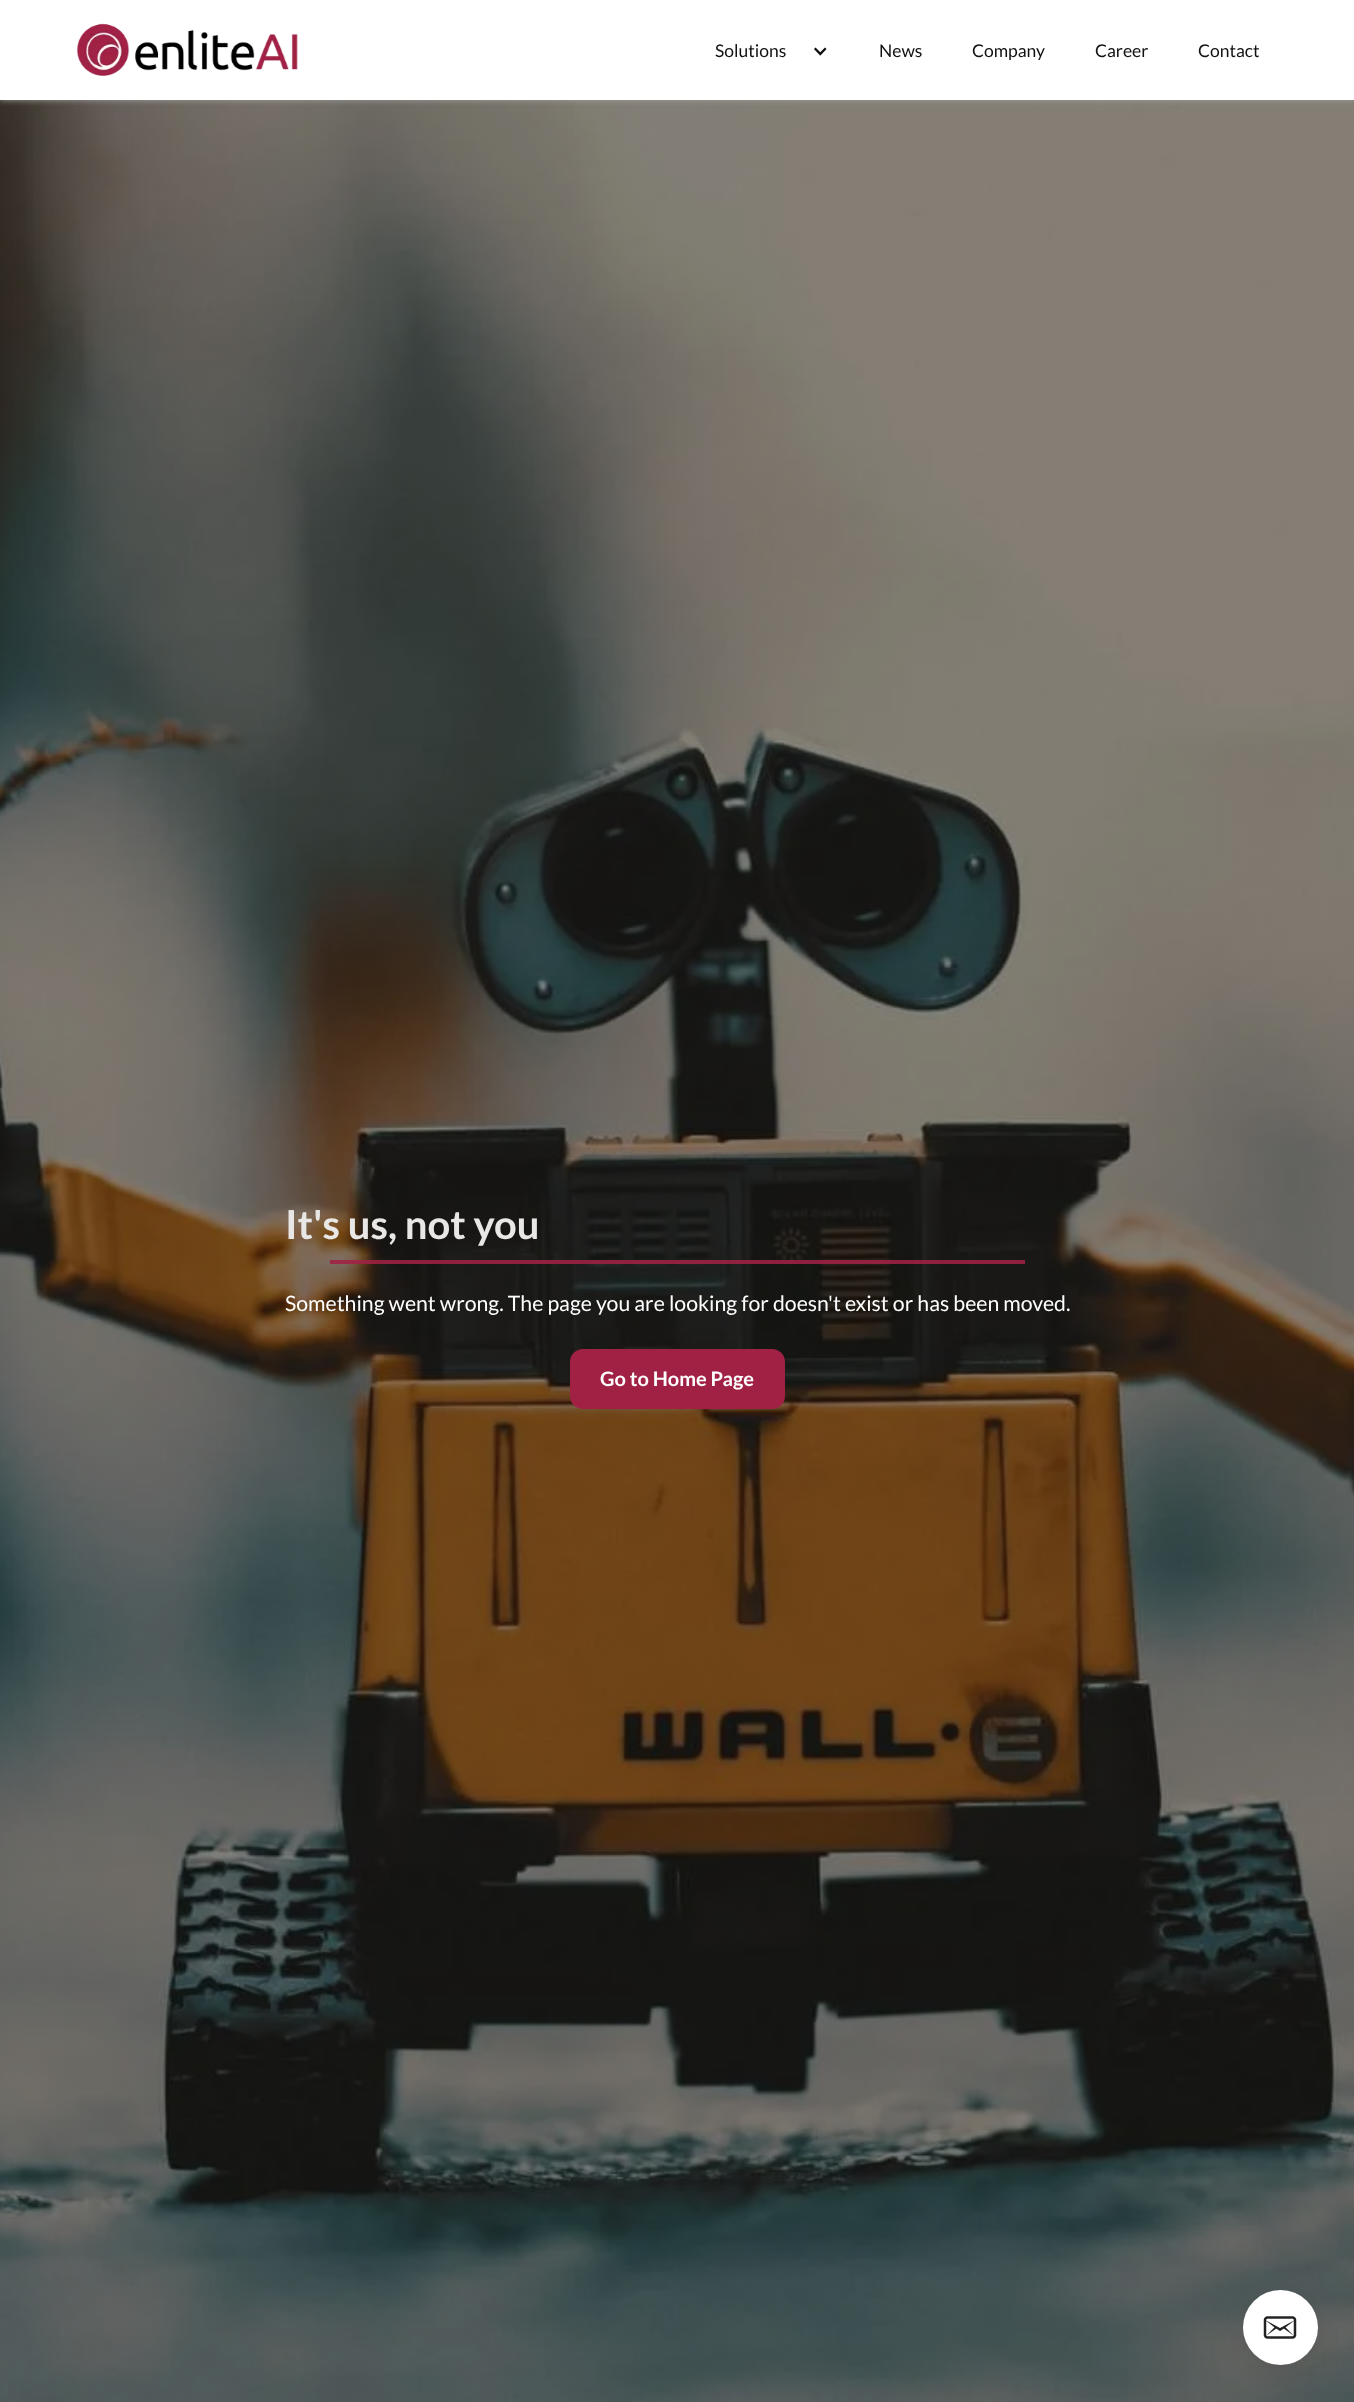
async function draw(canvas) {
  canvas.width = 1354
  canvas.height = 2402
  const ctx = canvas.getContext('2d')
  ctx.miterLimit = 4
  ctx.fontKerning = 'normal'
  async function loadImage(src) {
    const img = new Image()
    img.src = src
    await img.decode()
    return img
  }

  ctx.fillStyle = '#fff'
  ctx.fillRect(0, 0, 1354, 2402)
  ctx.drawImage(await loadImage('image2.png'), 0, 100, 1354, 2302)
  ctx.save()
  ctx.beginPath()
  ctx.rect(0, 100, 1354, 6)
  ctx.clip()
  ctx.fillStyle = '#a0a0a0'
  ctx.filter = 'blur(3px)'
  ctx.beginPath()
  ctx.rect(0, 0, 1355, 100)
  ctx.fill()
  ctx.filter = 'none'
  ctx.restore()
  ctx.drawImage(await loadImage('image0.png'), 76, 23, 222, 54)
  ctx.font = '17.5px Lato'
  ctx.fillStyle = '#111'
  ctx.fillText('Solutions', 715, 57)
  ctx.drawImage(await loadImage('image1.png'), 814, 47, 13, 9)
  ctx.fillText('News', 879, 57)
  ctx.fillText('Company', 972, 57)
  ctx.fillText('Career', 1095, 57)
  ctx.fillText('Contact', 1198, 57)
  ctx.font = 'bold 40px Lato'
  ctx.fillStyle = '#e8e7e6'
  ctx.fillText('It\'s us, not you', 285, 1239)
  ctx.fillStyle = '#a12144e0'
  ctx.fillRect(330, 1260, 695, 4)
  ctx.font = '21.25px Lato'
  ctx.fillStyle = '#fff'
  ctx.fillText('Something went wrong. The page you are looking for doesn\'t exist or has been moved.', 285, 1311)
  ctx.fillStyle = '#a12144'
  ctx.beginPath()
  ctx.roundRect(572, 1351, 211, 56, 11)
  ctx.fill()
  ctx.strokeStyle = '#a12144'
  ctx.lineWidth = 4
  ctx.stroke()
  ctx.font = 'bold 20px Lato'
  ctx.fillStyle = '#fff'
  ctx.fillText('Go to Home Page', 600, 1386)
  ctx.fillStyle = '#11111121'
  ctx.filter = 'blur(11px)'
  ctx.beginPath()
  ctx.roundRect(1243, 2298, 75, 75, 37.5)
  ctx.fill()
  ctx.filter = 'none'
  ctx.fillStyle = '#fff'
  ctx.beginPath()
  ctx.arc(1280.5, 2327.5, 37.5, 0, 2 * Math.PI)
  ctx.fill()
  ctx.drawImage(await loadImage('image3.png'), 1263, 2316, 34, 23)
}

draw(document.querySelector('canvas'))
